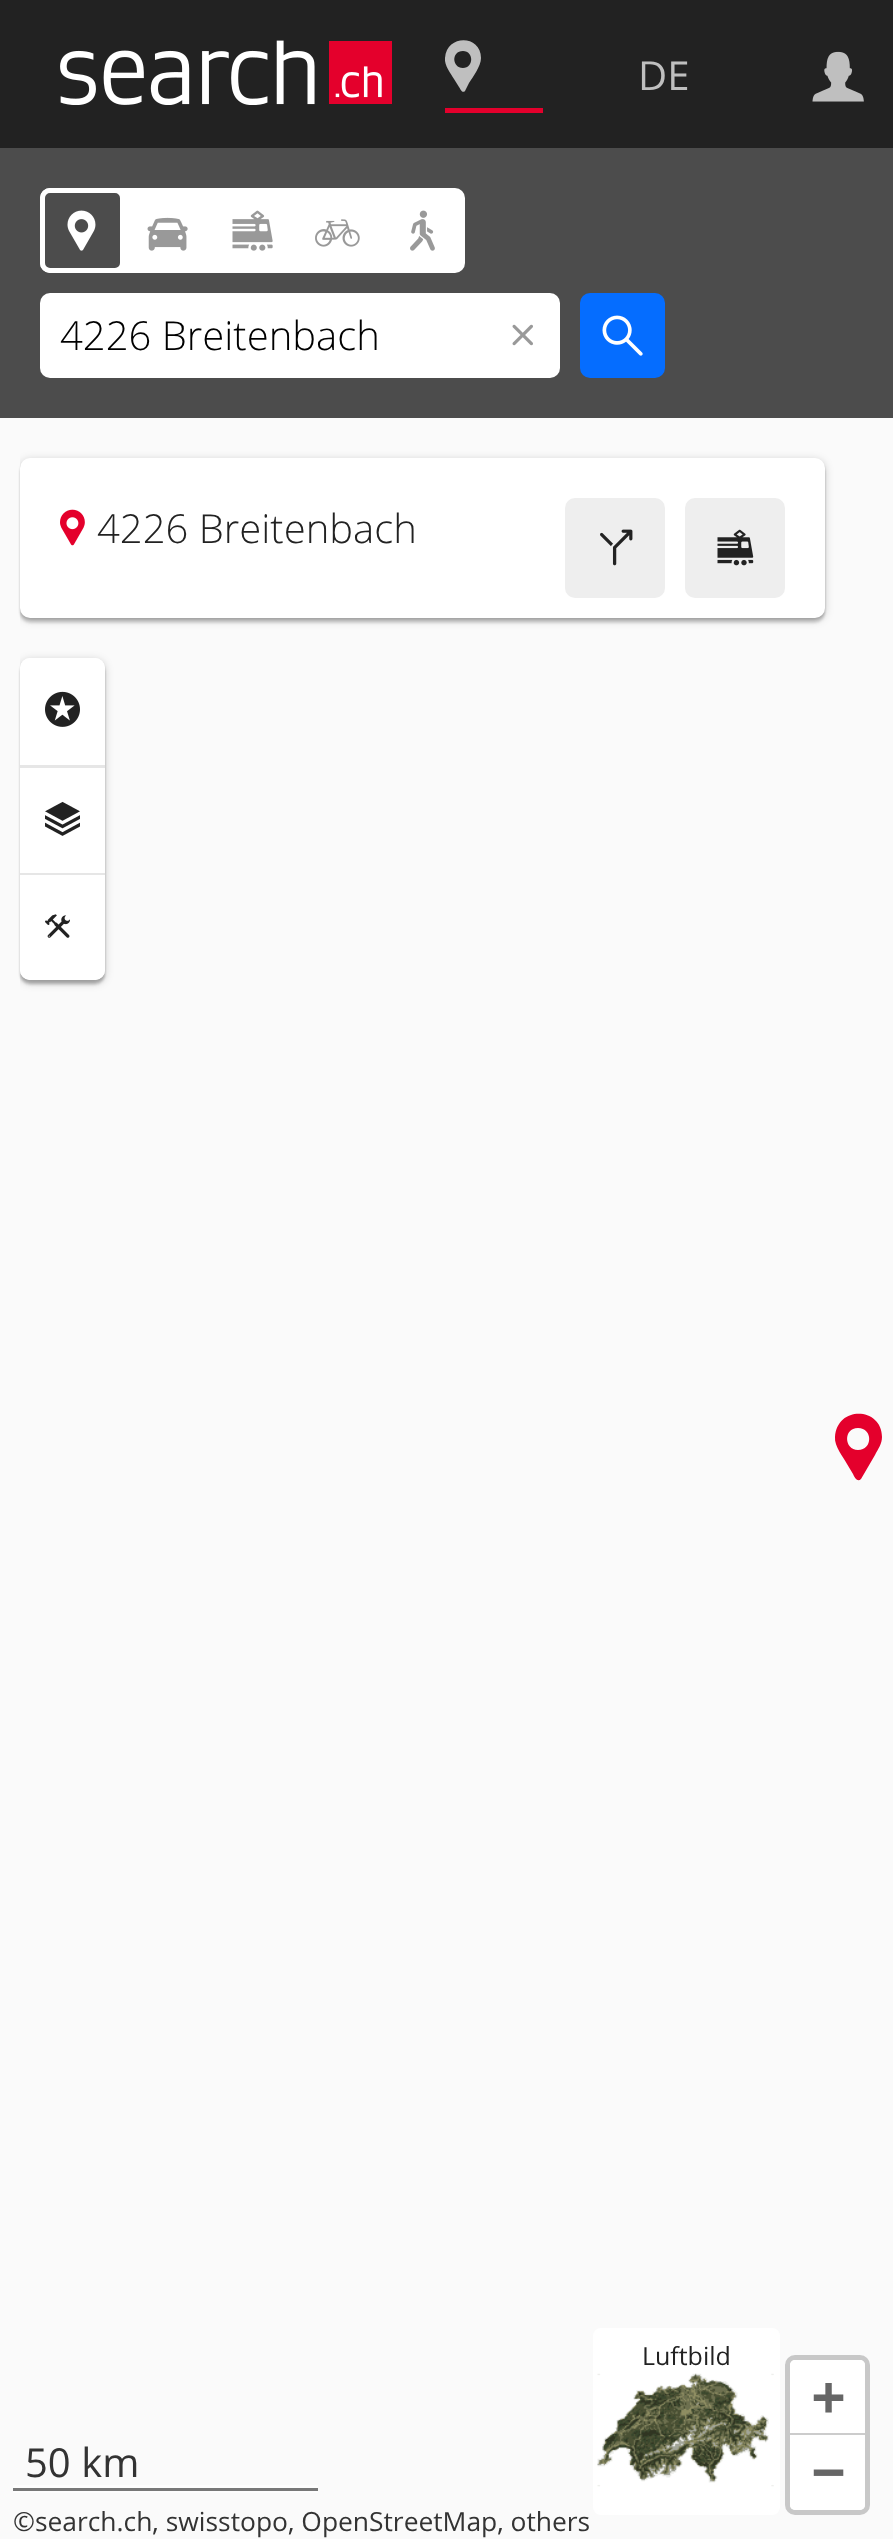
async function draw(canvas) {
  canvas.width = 893
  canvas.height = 2539
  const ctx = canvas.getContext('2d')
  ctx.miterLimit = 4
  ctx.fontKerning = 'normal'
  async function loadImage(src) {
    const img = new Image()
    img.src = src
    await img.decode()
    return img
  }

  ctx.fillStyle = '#fafafa'
  ctx.fillRect(0, 0, 893, 2539)
  ctx.fillStyle = '#222'
  ctx.fillRect(0, 0, 893, 148)
  ctx.drawImage(await loadImage('image0.png'), 60, 40, 332, 65)
  ctx.fillStyle = '#e4002c'
  ctx.fillRect(445, 108, 98, 5)
  ctx.fillStyle = '#bfbfbf'
  ctx.beginPath()
  ctx.moveTo(481, 58)
  ctx.bezierCurveTo(481, 35, 447, 34, 445, 58)
  ctx.bezierCurveTo(444, 65, 451, 74, 454, 79)
  ctx.lineTo(459, 87)
  ctx.bezierCurveTo(460, 88, 462, 94, 465, 91)
  ctx.lineTo(469, 83)
  ctx.bezierCurveTo(473, 77, 481, 66, 481, 58)
  ctx.closePath()
  ctx.moveTo(463, 68)
  ctx.bezierCurveTo(452, 68, 451, 51, 463, 51)
  ctx.bezierCurveTo(474, 51, 474, 68, 463, 68)
  ctx.closePath()
  ctx.fill()
  ctx.font = '40px Open Sans'
  ctx.fillText('DE', 638, 90)
  ctx.drawImage(await loadImage('image1.png'), 812, 51, 52, 51)
  ctx.fillStyle = '#4c4c4c'
  ctx.fillRect(0, 148, 893, 270)
  ctx.fillStyle = '#fff'
  ctx.beginPath()
  ctx.roundRect(40, 188, 425, 85, 10)
  ctx.fill()
  ctx.fillStyle = '#4c4c4c'
  ctx.beginPath()
  ctx.roundRect(42.5, 190.5, 80, 80, 7.5)
  ctx.fill()
  ctx.strokeStyle = '#fff'
  ctx.lineWidth = 5
  ctx.stroke()
  ctx.drawImage(await loadImage('image2.png'), 67, 210, 29, 41)
  ctx.drawImage(await loadImage('image3.png'), 147, 217, 41, 34)
  ctx.drawImage(await loadImage('image4.png'), 232, 210, 41, 41)
  ctx.drawImage(await loadImage('image5.png'), 315, 219, 45, 28)
  ctx.drawImage(await loadImage('image6.png'), 410, 210, 25, 41)
  ctx.fillStyle = '#fff'
  ctx.beginPath()
  ctx.roundRect(40, 293, 520, 85, 10)
  ctx.fill()
  ctx.font = '300 40px Open Sans'
  ctx.fillStyle = '#000'
  ctx.fillText('4226 Breitenbach', 60, 350)
  ctx.drawImage(await loadImage('image7.png'), 512, 324, 21, 22)
  ctx.fillStyle = '#056dff'
  ctx.beginPath()
  ctx.roundRect(580, 293, 85, 85, 10)
  ctx.fill()
  ctx.drawImage(await loadImage('image8.png'), 602, 315, 41, 41)
  ctx.save()
  ctx.beginPath()
  ctx.rect(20, 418, 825, 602)
  ctx.clip()
  ctx.fillStyle = '#00000033'
  ctx.filter = 'blur(4px)'
  ctx.beginPath()
  ctx.roundRect(20, 460, 805, 160, 10)
  ctx.fill()
  ctx.filter = 'none'
  ctx.restore()
  ctx.fillStyle = '#0000001f'
  ctx.filter = 'blur(1px)'
  ctx.beginPath()
  ctx.roundRect(20, 463, 805, 160, 10)
  ctx.fill()
  ctx.filter = 'none'
  ctx.fillStyle = '#00000024'
  ctx.filter = 'blur(1px)'
  ctx.beginPath()
  ctx.roundRect(20, 460, 805, 160, 10)
  ctx.fill()
  ctx.filter = 'none'
  ctx.fillStyle = '#fff'
  ctx.beginPath()
  ctx.roundRect(20, 458, 805, 160, 10)
  ctx.fill()
  ctx.drawImage(await loadImage('image9.png'), 60, 509, 25, 37)
  ctx.fillStyle = '#222'
  ctx.fillText('4226 Breitenbach', 97, 543)
  ctx.fillStyle = '#eee'
  ctx.beginPath()
  ctx.roundRect(565, 498, 100, 100, 10)
  ctx.fill()
  ctx.drawImage(await loadImage('image10.png'), 600, 529, 33, 37)
  ctx.beginPath()
  ctx.roundRect(685, 498, 100, 100, 10)
  ctx.fill()
  ctx.drawImage(await loadImage('image11.png'), 717, 529, 37, 37)
  ctx.save()
  ctx.beginPath()
  ctx.rect(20, 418, 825, 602)
  ctx.clip()
  ctx.fillStyle = '#00000033'
  ctx.filter = 'blur(4px)'
  ctx.beginPath()
  ctx.roundRect(20, 660, 85, 323, 10)
  ctx.fill()
  ctx.filter = 'none'
  ctx.restore()
  ctx.fillStyle = '#0000001f'
  ctx.filter = 'blur(1px)'
  ctx.beginPath()
  ctx.roundRect(20, 663, 85, 322, 10)
  ctx.fill()
  ctx.filter = 'none'
  ctx.fillStyle = '#00000024'
  ctx.filter = 'blur(1px)'
  ctx.beginPath()
  ctx.roundRect(20, 660, 85, 323, 10)
  ctx.fill()
  ctx.filter = 'none'
  ctx.fillStyle = '#fff'
  ctx.beginPath()
  ctx.roundRect(20, 658, 85, 322, 10)
  ctx.fill()
  ctx.beginPath()
  ctx.roundRect(20, 658, 85, 110, [10, 10, 0, 0])
  ctx.fill()
  ctx.fillStyle = '#e6e6e6'
  ctx.fillRect(20, 765, 85, 3)
  ctx.drawImage(await loadImage('image12.png'), 45, 691, 35, 36)
  ctx.fillRect(20, 873, 85, 2)
  ctx.drawImage(await loadImage('image13.png'), 45, 801, 35, 35)
  ctx.fillStyle = '#fff'
  ctx.beginPath()
  ctx.roundRect(20, 875, 85, 105, [0, 0, 10, 10])
  ctx.fill()
  ctx.drawImage(await loadImage('image14.png'), 45, 914, 25, 24)
  ctx.beginPath()
  ctx.roundRect(593, 2328, 187, 187, 8)
  ctx.fill()
  ctx.drawImage(await loadImage('image15.png'), 597, 2373, 177, 114)
  ctx.font = '25px Open Sans'
  ctx.fillStyle = '#222'
  ctx.fillText('Luftbild', 642, 2365)
  ctx.fillStyle = '#e4002c'
  ctx.beginPath()
  ctx.moveTo(882, 1437)
  ctx.bezierCurveTo(882, 1407, 837, 1405, 835, 1437)
  ctx.bezierCurveTo(834, 1446, 844, 1458, 847, 1464)
  ctx.lineTo(853, 1474)
  ctx.bezierCurveTo(854, 1476, 857, 1483, 861, 1479)
  ctx.lineTo(875, 1455)
  ctx.bezierCurveTo(878, 1449, 882, 1444, 882, 1437)
  ctx.closePath()
  ctx.moveTo(858, 1450)
  ctx.bezierCurveTo(844, 1450, 843, 1428, 858, 1428)
  ctx.bezierCurveTo(873, 1428, 873, 1450, 858, 1450)
  ctx.closePath()
  ctx.fill()
  ctx.beginPath()
  ctx.roundRect(787.5, 2357.5, 80, 155, 7.5)
  ctx.strokeStyle = '#c8c8c8'
  ctx.stroke()
  ctx.fillStyle = '#fff'
  ctx.beginPath()
  ctx.roundRect(790, 2360, 75, 75, [5, 5, 0, 0])
  ctx.fill()
  ctx.fillStyle = '#ccc'
  ctx.fillRect(790, 2433, 75, 2)
  ctx.font = 'bold 55px DejaVu Sans Mono'
  ctx.fillStyle = '#666'
  ctx.fillText('+', 812, 2415)
  ctx.fillStyle = '#fff'
  ctx.beginPath()
  ctx.roundRect(790, 2435, 75, 75, [0, 0, 5, 5])
  ctx.fill()
  ctx.fillStyle = '#666'
  ctx.fillText('−', 812, 2490)
  ctx.fillStyle = '#fdfdfd'
  ctx.beginPath()
  ctx.moveTo(13, 2490)
  ctx.lineTo(13, 2493)
  ctx.lineTo(318, 2493)
  ctx.lineTo(318, 2440)
  ctx.lineTo(318, 2490)
  ctx.closePath()
  ctx.fill()
  ctx.fillRect(13, 2485, 305, 3)
  ctx.fillStyle = '#777'
  ctx.fillRect(13, 2488, 305, 3)
  ctx.font = '40px Open Sans'
  ctx.fillStyle = '#333'
  ctx.fillText('50 km', 25, 2477)
  ctx.font = '26.4px Open Sans'
  ctx.fillText('©search.ch, swisstopo, OpenStreetMap, others', 13, 2531)
}

draw(document.querySelector('canvas'))
